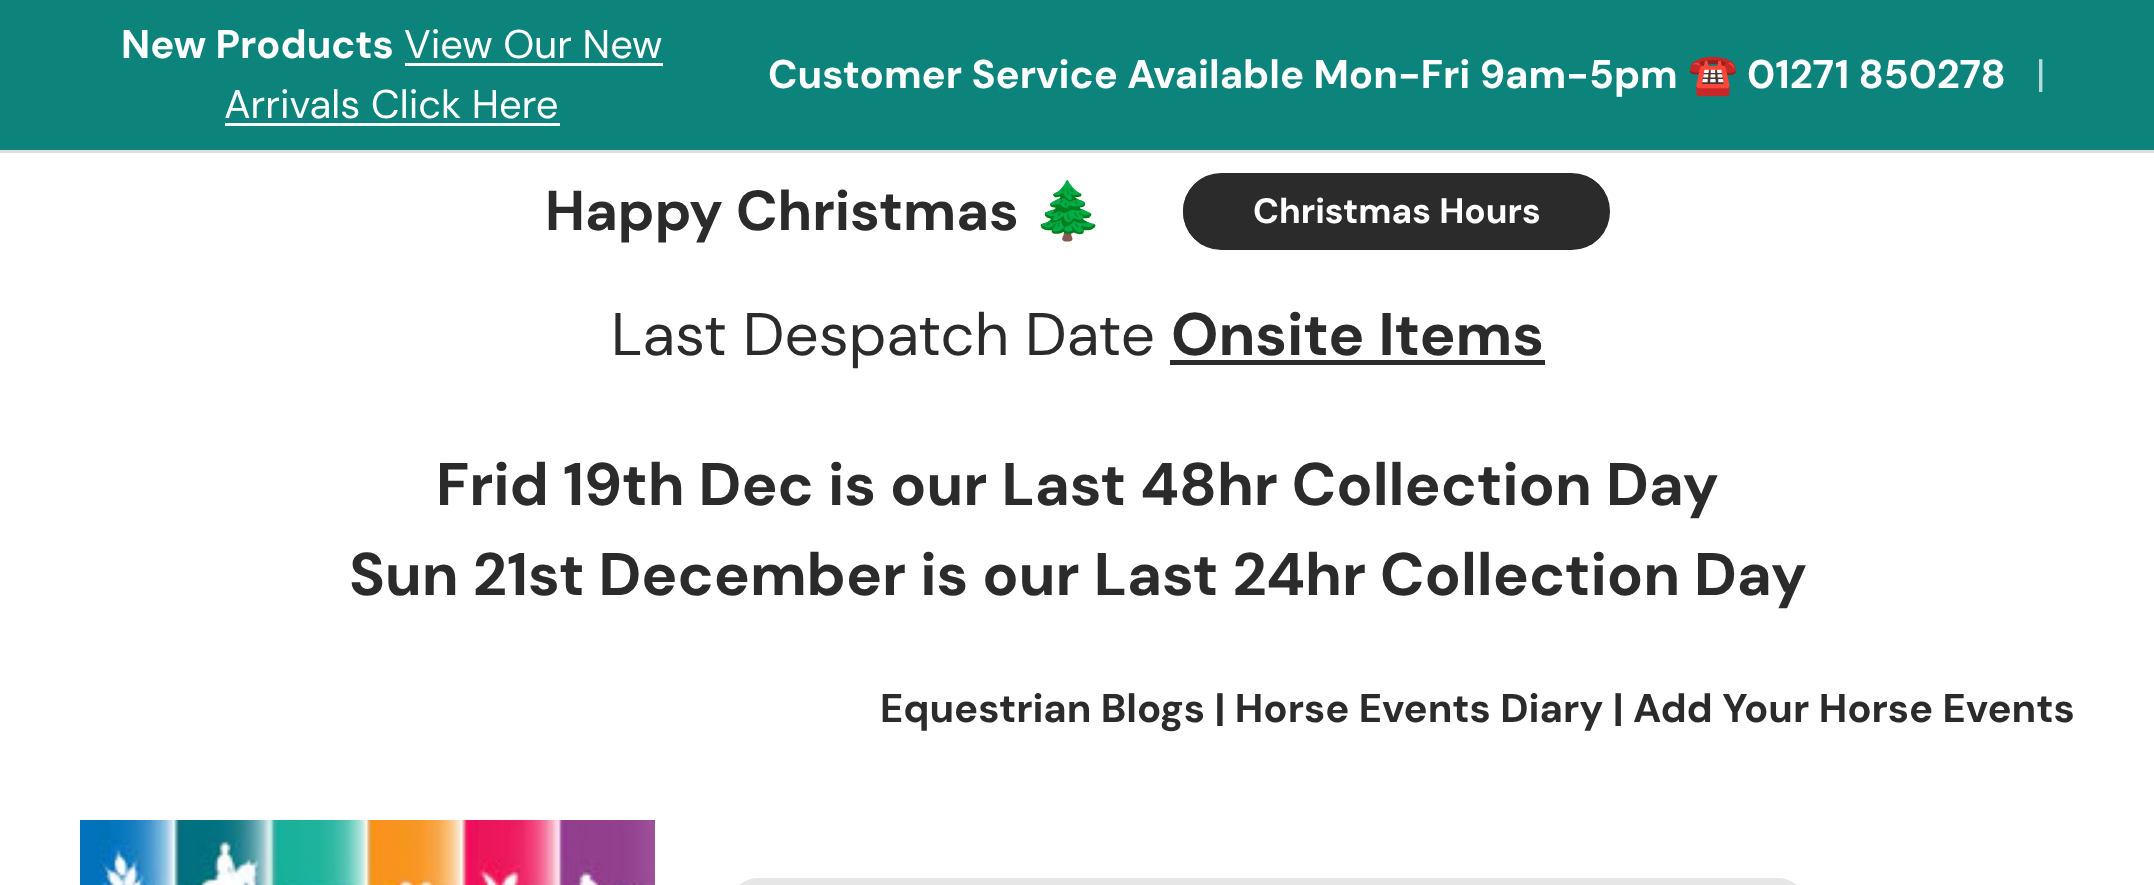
async function draw(canvas) {
  canvas.width = 2154
  canvas.height = 885
  const ctx = canvas.getContext('2d')
  ctx.miterLimit = 4
  ctx.fontKerning = 'normal'
  async function loadImage(src) {
    const img = new Image()
    img.src = src
    await img.decode()
    return img
  }
  let gradient

  ctx.fillStyle = '#fff'
  ctx.fillRect(0, 0, 2154, 885)
  ctx.fillStyle = '#0c847c'
  ctx.fillRect(0, 0, 2154, 150)
  ctx.font = 'bold 40px "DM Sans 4"'
  ctx.fillStyle = '#fff'
  ctx.fillText('New Products', 121, 58)
  ctx.font = '40px "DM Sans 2"'
  ctx.fillText('View Our New', 404, 58)
  ctx.fillRect(405, 63, 258, 3)
  ctx.fillText('Arrivals Click Here', 224, 118)
  ctx.fillRect(225, 123, 335, 3)
  ctx.font = 'bold 40px "DM Sans 4"'
  ctx.fillText('Customer Service Available Mon-Fri 9am-5pm', 768, 88)
  ctx.font = 'bold 40px Noto Color Emoji'
  ctx.fillText('☎️', 1688, 88)
  ctx.font = 'bold 40px "DM Sans 4"'
  ctx.fillText('01271 850278', 1747, 88)
  ctx.font = '40px "DM Sans 2"'
  ctx.fillStyle = '#b6dad8'
  ctx.fillText('|', 2036, 88)
  ctx.fillStyle = '#dfdfdf'
  ctx.fillRect(0, 150, 2154, 3)
  ctx.font = 'bold 56.25px DM Sans'
  ctx.fillStyle = '#2a2b2a'
  ctx.fillText('Happy Christmas', 545, 230)
  ctx.font = 'bold 56.25px Noto Color Emoji'
  ctx.fillText('🌲', 1033, 230)
  ctx.save()
  ctx.beginPath()
  ctx.roundRect(1183, 173, 427, 77, 38.5)
  ctx.clip()
  gradient = ctx.createLinearGradient(381, 62, 1576, 360)
  gradient.addColorStop(0.6, '#525352')
  gradient.addColorStop(0.6, '#2a2b2a')
  gradient.addColorStop(1, '#2a2b2a')
  ctx.fillStyle = gradient
  ctx.fillRect(1183, 178, 422, 67)
  ctx.restore()
  ctx.beginPath()
  ctx.roundRect(1185.5, 175.5, 422, 72, 36)
  ctx.strokeStyle = '#2a2b2a'
  ctx.lineWidth = 5
  ctx.stroke()
  ctx.font = 'bold 35.25px "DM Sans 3"'
  ctx.fillStyle = '#fff'
  ctx.fillText('Christmas Hours', 1253, 223)
  ctx.font = '60px DM Sans'
  ctx.fillStyle = '#2a2b2a'
  ctx.fillText('Last Despatch Date', 611, 355)
  ctx.font = 'bold 60px "DM Sans 2"'
  ctx.fillText('Onsite Items', 1171, 355)
  ctx.fillRect(1170, 360, 375, 5)
  ctx.fillText('Frid 19th Dec is our Last 48hr Collection Day', 436, 505)
  ctx.fillText('Sun 21st December is our Last 24hr Collection Day', 349, 595)
  ctx.font = 'bold 40px "DM Sans 4"'
  ctx.fillText('Equestrian Blogs | Horse Events Diary | Add Your Horse Events', 880, 722)
  ctx.drawImage(await loadImage('image0.png'), 80, 820, 575, 65)
  ctx.fillStyle = '#e6e6e6'
  ctx.beginPath()
  ctx.roundRect(728, 878, 1080, 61, 53.5)
  ctx.fill()
}

draw(document.querySelector('canvas'))
